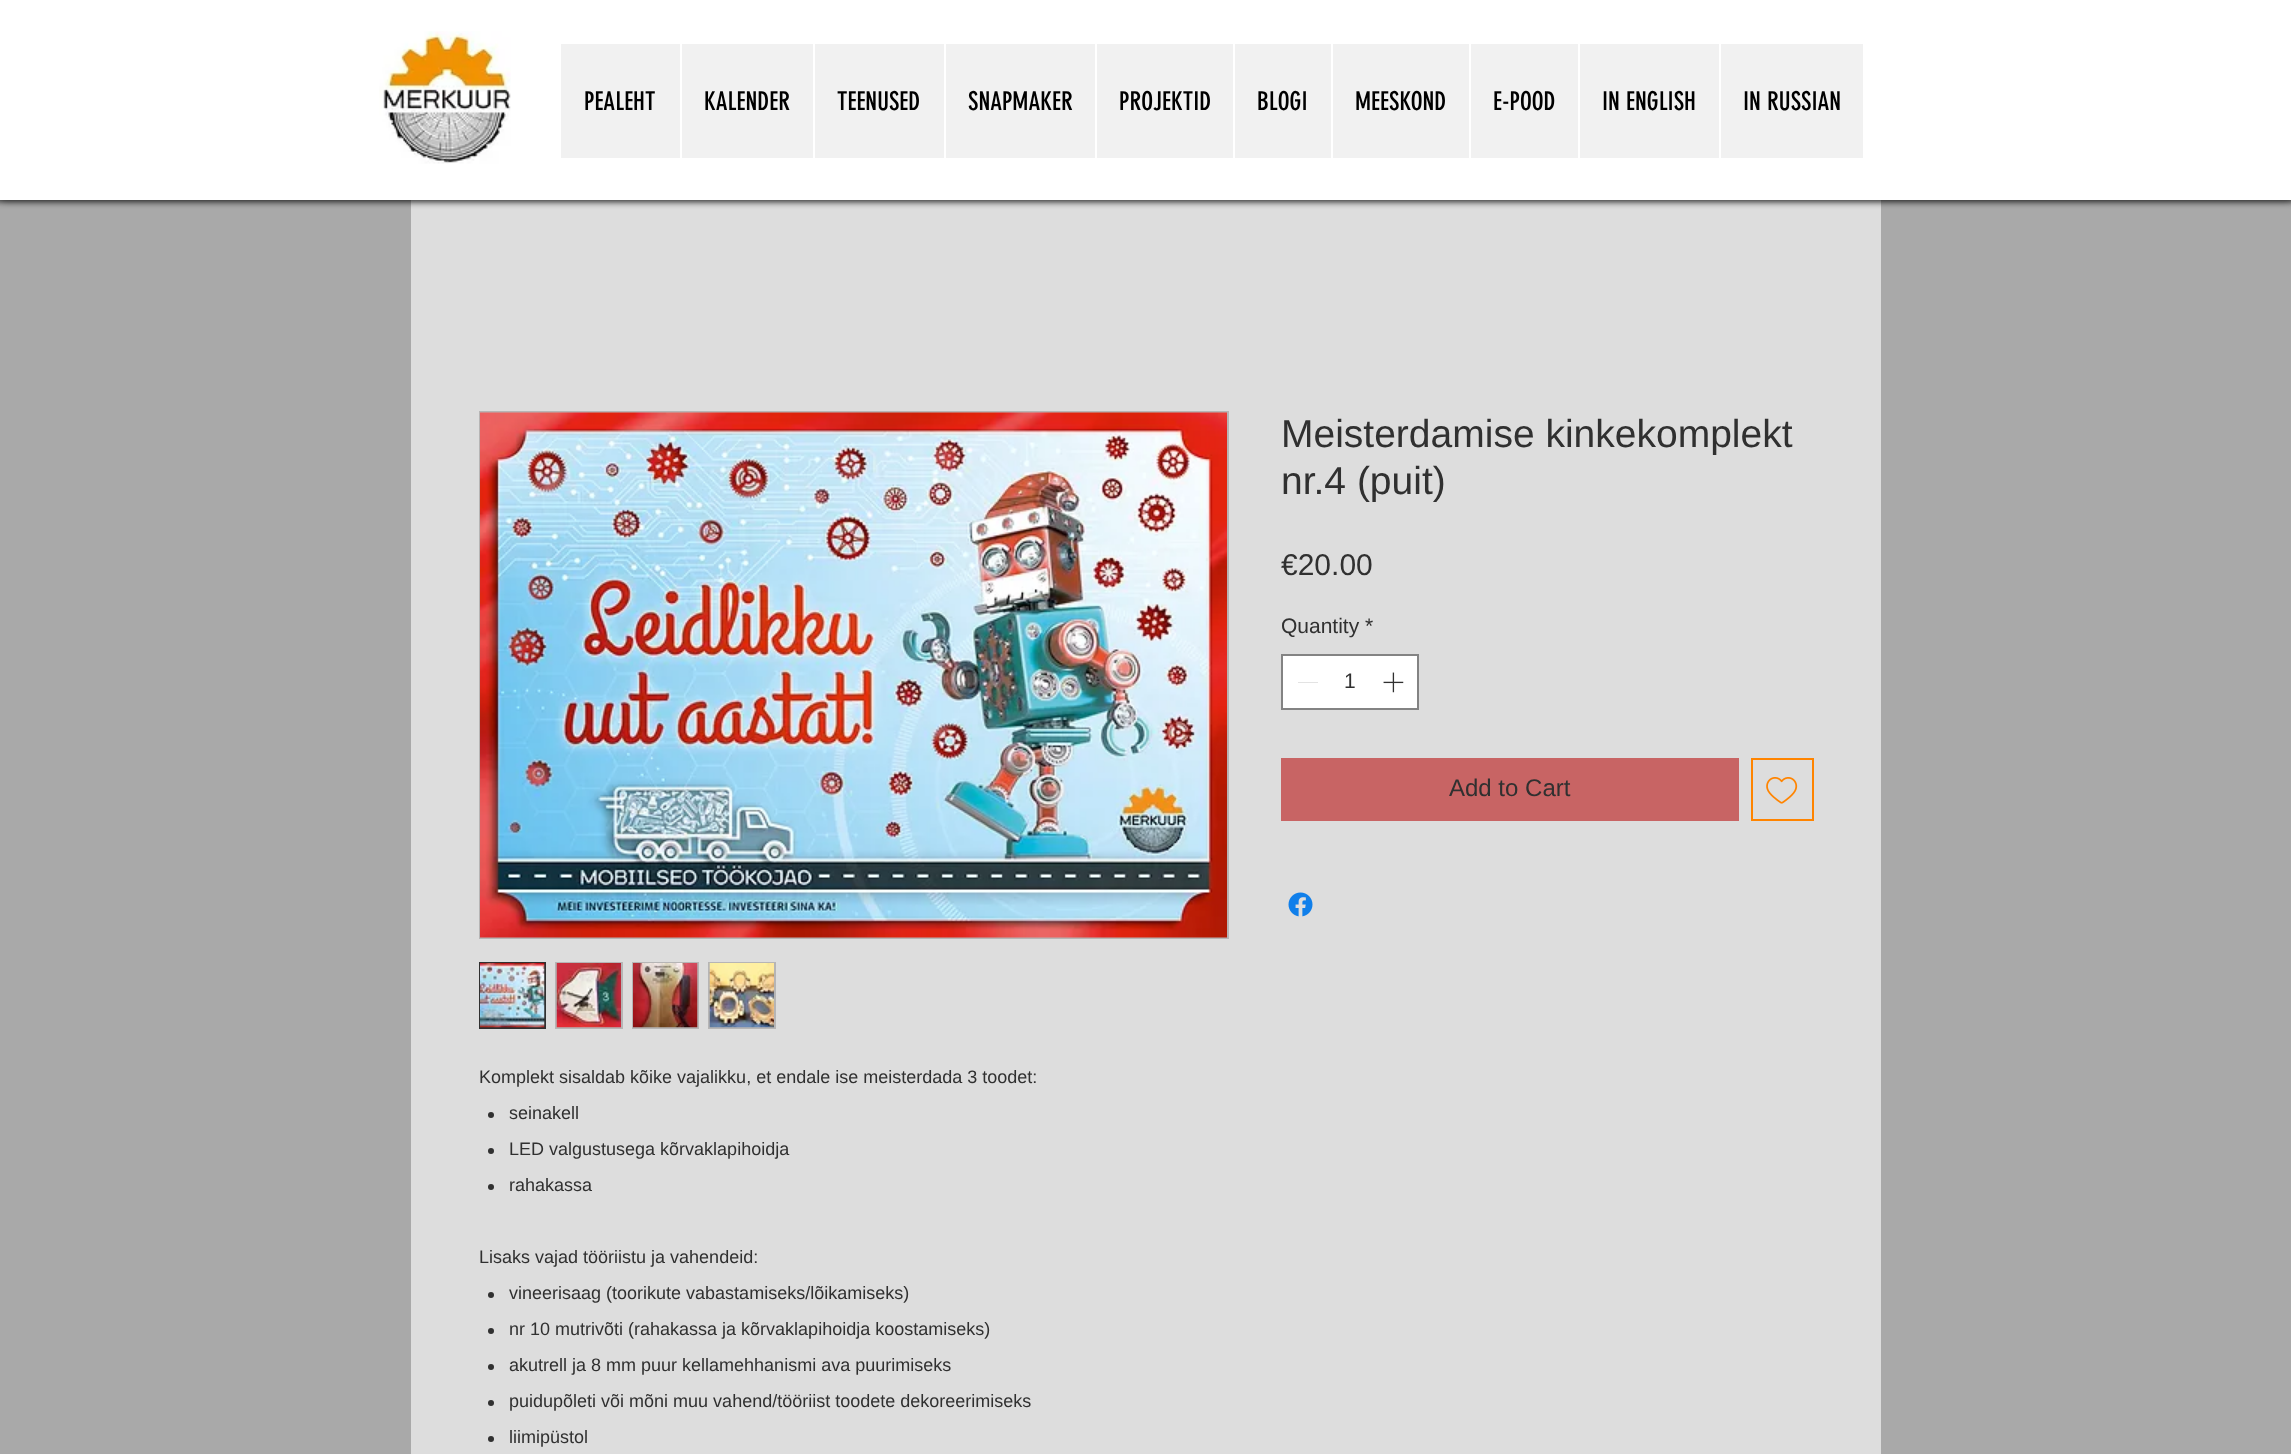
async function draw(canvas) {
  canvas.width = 2291
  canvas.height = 1454
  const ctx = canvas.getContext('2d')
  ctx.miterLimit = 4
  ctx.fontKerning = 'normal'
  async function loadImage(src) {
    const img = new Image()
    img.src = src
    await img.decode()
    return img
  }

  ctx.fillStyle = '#a9a9a9'
  ctx.fillRect(0, 0, 2291, 1454)
  ctx.fillStyle = '#ddd'
  ctx.fillRect(411, 200, 1470, 1254)
  ctx.fillStyle = '#000000b3'
  ctx.filter = 'blur(4px)'
  ctx.beginPath()
  ctx.rect(0, 0, 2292, 200)
  ctx.fill()
  ctx.filter = 'none'
  ctx.fillStyle = '#00000099'
  ctx.filter = 'blur(3px)'
  ctx.beginPath()
  ctx.roundRect(-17, 2, 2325, 199, 8)
  ctx.fill()
  ctx.filter = 'none'
  ctx.fillStyle = '#fff'
  ctx.fillRect(0, 0, 2291, 200)
  ctx.drawImage(await loadImage('image0.png'), 379, 31, 132, 133)
  ctx.fillStyle = '#f1f1f1'
  ctx.fillRect(561, 44, 1302, 114)
  ctx.font = '25.5px "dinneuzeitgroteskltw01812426"'
  ctx.fillStyle = '#000'
  ctx.fillText('PEALEHT', 584, 110)
  ctx.fillStyle = '#fff'
  ctx.fillRect(680, 44, 2, 114)
  ctx.fillStyle = '#000'
  ctx.fillText('KALENDER', 704, 110)
  ctx.fillStyle = '#fff'
  ctx.fillRect(813, 44, 2, 114)
  ctx.fillStyle = '#000'
  ctx.fillText('TEENUSED', 837, 110)
  ctx.fillStyle = '#fff'
  ctx.fillRect(944, 44, 2, 114)
  ctx.fillStyle = '#000'
  ctx.fillText('SNAPMAKER', 968, 110)
  ctx.fillStyle = '#fff'
  ctx.fillRect(1095, 44, 2, 114)
  ctx.fillStyle = '#000'
  ctx.fillText('PROJEKTID', 1119, 110)
  ctx.fillStyle = '#fff'
  ctx.fillRect(1233, 44, 2, 114)
  ctx.fillStyle = '#000'
  ctx.fillText('BLOGI', 1257, 110)
  ctx.fillStyle = '#fff'
  ctx.fillRect(1331, 44, 2, 114)
  ctx.fillStyle = '#000'
  ctx.fillText('MEESKOND', 1355, 110)
  ctx.fillStyle = '#fff'
  ctx.fillRect(1469, 44, 2, 114)
  ctx.fillStyle = '#000'
  ctx.fillText('E-POOD', 1493, 110)
  ctx.fillStyle = '#fff'
  ctx.fillRect(1578, 44, 2, 114)
  ctx.fillStyle = '#000'
  ctx.fillText('IN ENGLISH', 1602, 110)
  ctx.fillStyle = '#fff'
  ctx.fillRect(1719, 44, 2, 114)
  ctx.fillStyle = '#000'
  ctx.fillText('IN RUSSIAN', 1743, 110)
  ctx.font = '39px Liberation Sans'
  ctx.fillStyle = '#303030'
  ctx.fillText('Meisterdamise kinkekomplekt', 1281, 447)
  ctx.fillText('nr.4 (puit)', 1281, 494)
  ctx.font = '30px Liberation Sans'
  ctx.fillText('€20.00', 1281, 575)
  ctx.font = '21px Liberation Sans'
  ctx.fillText('Quantity *', 1281, 633)
  ctx.fillStyle = '#fff'
  ctx.beginPath()
  ctx.rect(1282, 655, 136, 54)
  ctx.fill()
  ctx.strokeStyle = '#838383'
  ctx.lineWidth = 2
  ctx.stroke()
  ctx.fillStyle = '#e3e3e3'
  ctx.fillRect(1298, 682, 20, 1)
  ctx.fillStyle = '#303030'
  ctx.fillText('1', 1344, 688)
  ctx.drawImage(await loadImage('image1.png'), 1383, 672, 21, 21)
  ctx.fillStyle = '#c86464'
  ctx.fillRect(1281, 758, 458, 63)
  ctx.font = '24px Liberation Sans'
  ctx.fillStyle = '#303030'
  ctx.fillText('Add to Cart', 1449, 796)
  ctx.strokeStyle = '#ff8400'
  ctx.strokeRect(1752, 759, 61, 61)
  ctx.drawImage(await loadImage('image2.png'), 1766, 777, 32, 27)
  ctx.drawImage(await loadImage('image3.png'), 1288, 892, 25, 25)
  ctx.strokeStyle = '#b6b5b5'
  ctx.strokeRect(480, 412, 748, 526)
  ctx.drawImage(await loadImage('image4.png'), 480, 412, 747, 526)
  ctx.strokeStyle = '#303030'
  ctx.strokeRect(480, 963, 65, 65)
  ctx.drawImage(await loadImage('image5.png'), 480, 963, 65, 65)
  ctx.fillStyle = '#b6b5b5'
  ctx.fillRect(555, 962, 68, 67)
  ctx.drawImage(await loadImage('image6.png'), 556, 963, 65, 65)
  ctx.fillRect(632, 962, 67, 67)
  ctx.drawImage(await loadImage('image7.png'), 633, 963, 65, 65)
  ctx.fillRect(708, 962, 68, 67)
  ctx.drawImage(await loadImage('image8.png'), 709, 963, 65, 65)
  ctx.font = '18px Liberation Sans'
  ctx.fillStyle = '#303030'
  ctx.fillText('Komplekt sisaldab kõike vajalikku, et endale ise meisterdada 3 toodet:', 479, 1083)
  ctx.beginPath()
  ctx.arc(491, 1115, 3, 0, 2 * Math.PI)
  ctx.fill()
  ctx.fillText('seinakell', 509, 1119)
  ctx.beginPath()
  ctx.arc(491, 1151, 3, 0, 2 * Math.PI)
  ctx.fill()
  ctx.fillText('LED valgustusega kõrvaklapihoidja', 509, 1155)
  ctx.beginPath()
  ctx.arc(491, 1187, 3, 0, 2 * Math.PI)
  ctx.fill()
  ctx.fillText('rahakassa', 509, 1191)
  ctx.fillText('Lisaks vajad tööriistu ja vahendeid:', 479, 1263)
  ctx.beginPath()
  ctx.arc(491, 1295, 3, 0, 2 * Math.PI)
  ctx.fill()
  ctx.fillText('vineerisaag (toorikute vabastamiseks/lõikamiseks)', 509, 1299)
  ctx.beginPath()
  ctx.arc(491, 1331, 3, 0, 2 * Math.PI)
  ctx.fill()
  ctx.fillText('nr 10 mutrivõti (rahakassa ja kõrvaklapihoidja koostamiseks)', 509, 1335)
  ctx.beginPath()
  ctx.arc(491, 1367, 3, 0, 2 * Math.PI)
  ctx.fill()
  ctx.fillText('akutrell ja 8 mm puur kellamehhanismi ava puurimiseks', 509, 1371)
  ctx.beginPath()
  ctx.arc(491, 1403, 3, 0, 2 * Math.PI)
  ctx.fill()
  ctx.fillText('puidupõleti või mõni muu vahend/tööriist toodete dekoreerimiseks', 509, 1407)
  ctx.beginPath()
  ctx.arc(491, 1439, 3, 0, 2 * Math.PI)
  ctx.fill()
  ctx.fillText('liimipüstol', 509, 1443)
}

draw(document.querySelector('canvas'))
